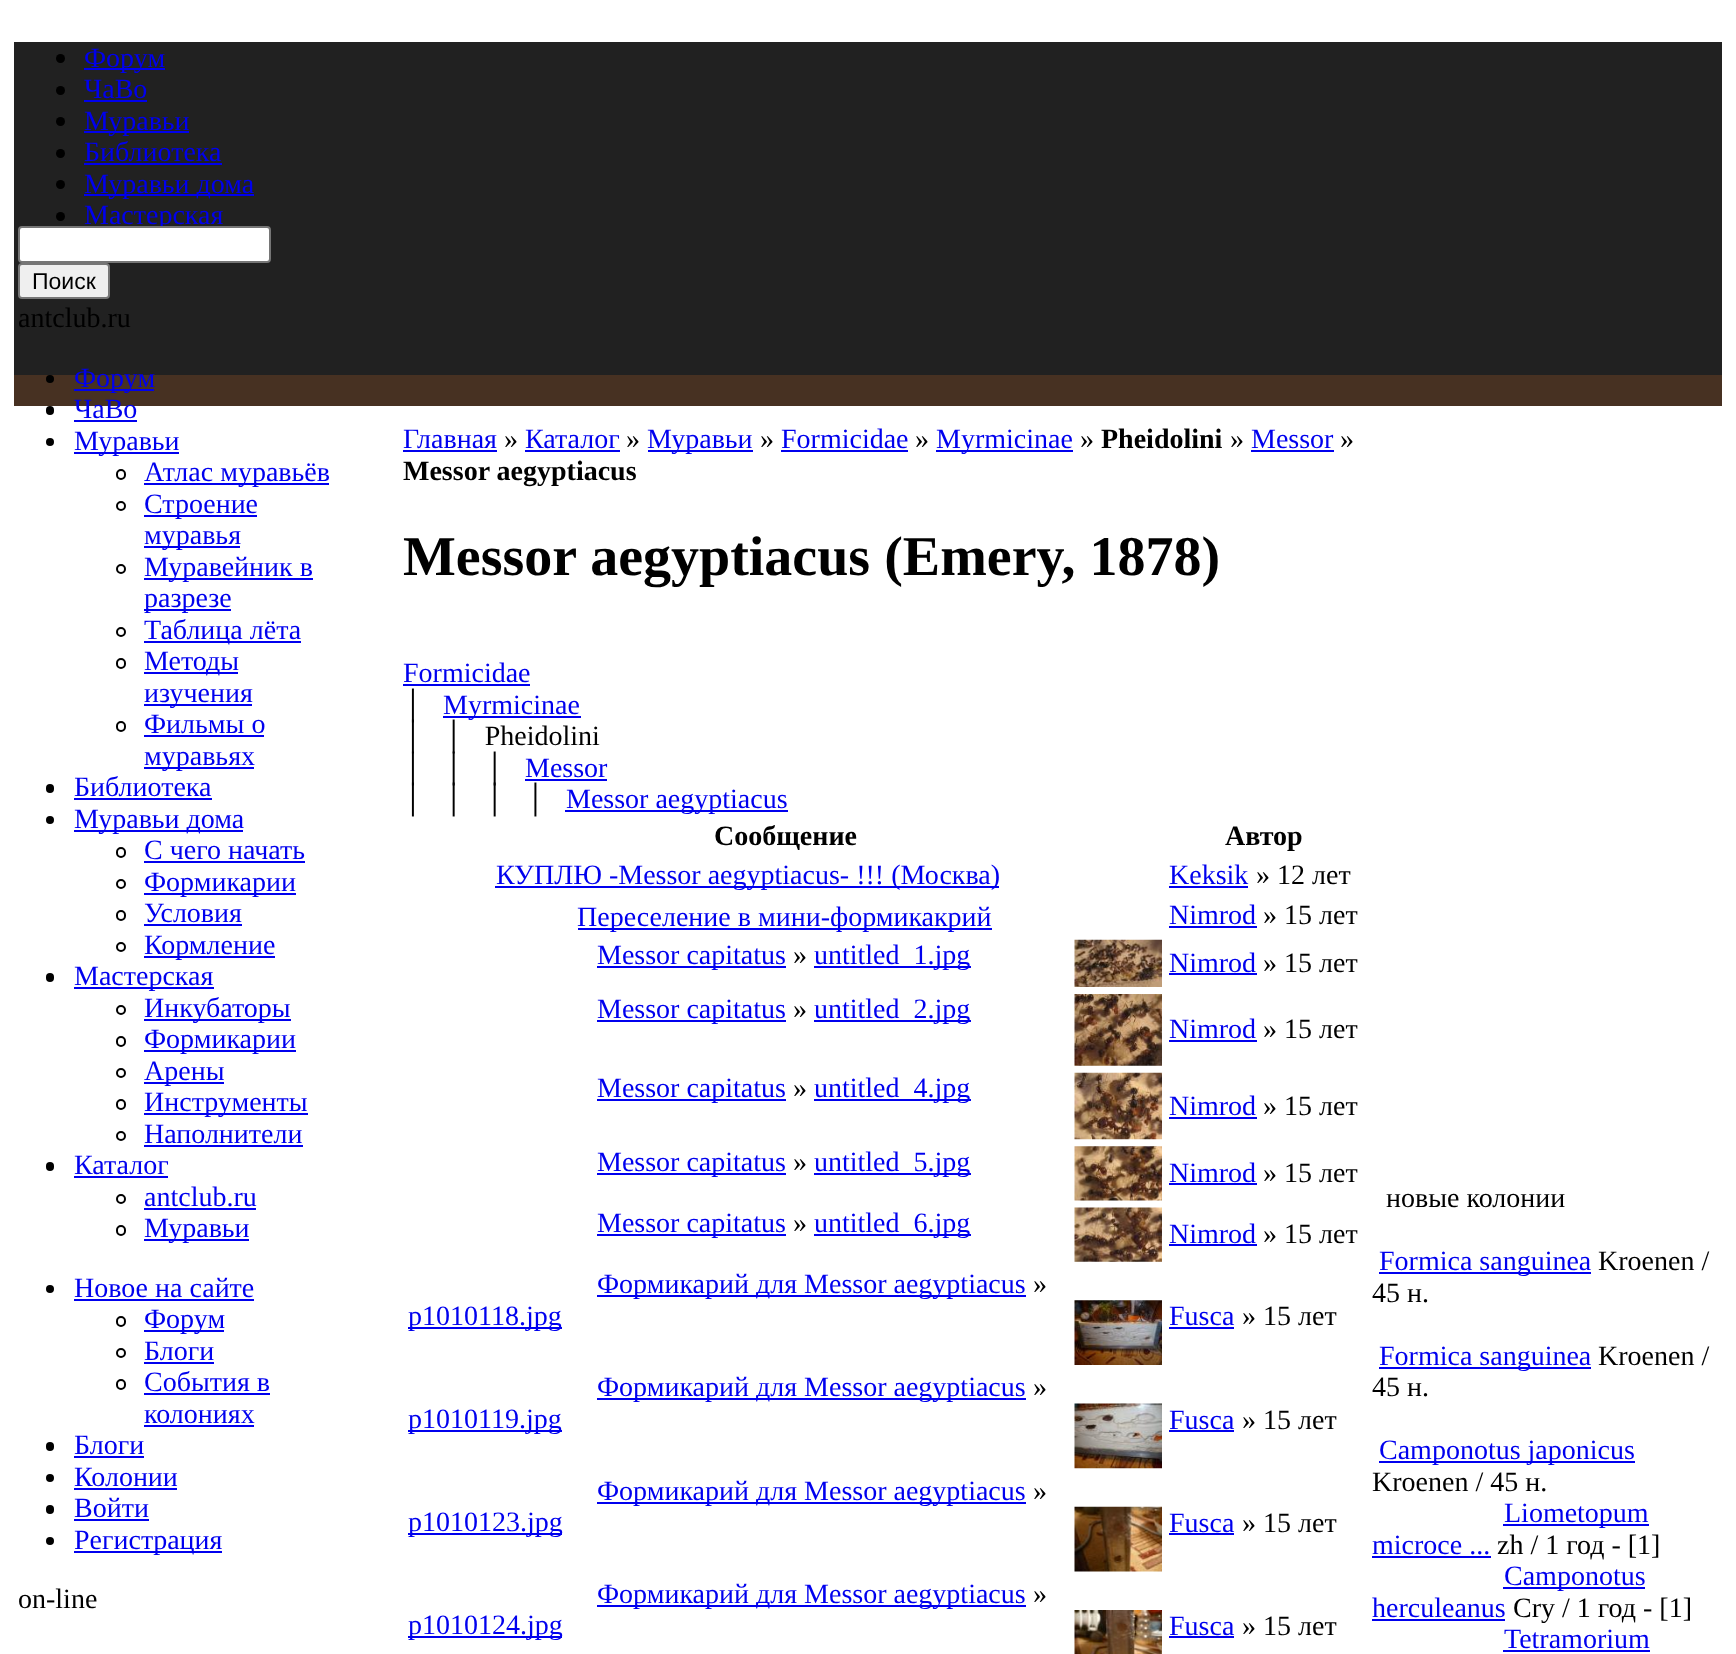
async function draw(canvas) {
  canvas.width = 1736
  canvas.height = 1654
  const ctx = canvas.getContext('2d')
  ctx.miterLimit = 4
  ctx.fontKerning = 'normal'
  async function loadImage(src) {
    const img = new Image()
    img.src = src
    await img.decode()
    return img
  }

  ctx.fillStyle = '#fff'
  ctx.fillRect(0, 0, 1736, 1654)
  ctx.fillStyle = '#212121'
  ctx.fillRect(14, 42, 1708, 333)
  ctx.fillStyle = '#000'
  ctx.beginPath()
  ctx.arc(60.5, 58.5, 4.5, 0, 2 * Math.PI)
  ctx.fill()
  ctx.fillStyle = '#00e'
  ctx.fillRect(84, 68, 81, 2)
  ctx.font = '28px Liberation Serif'
  ctx.fillText('Форум', 84, 67)
  ctx.fillStyle = '#000'
  ctx.beginPath()
  ctx.arc(60.5, 90.5, 4.5, 0, 2 * Math.PI)
  ctx.fill()
  ctx.fillStyle = '#00e'
  ctx.fillText('ЧаВо', 84, 98)
  ctx.fillRect(84, 100, 63, 2)
  ctx.fillStyle = '#000'
  ctx.beginPath()
  ctx.arc(60.5, 121.5, 4.5, 0, 2 * Math.PI)
  ctx.fill()
  ctx.fillStyle = '#00e'
  ctx.fillRect(84, 131, 105, 2)
  ctx.fillText('Муравьи', 84, 130)
  ctx.fillStyle = '#000'
  ctx.beginPath()
  ctx.arc(60.5, 153.5, 4.5, 0, 2 * Math.PI)
  ctx.fill()
  ctx.fillStyle = '#00e'
  ctx.fillText('Библиотека', 84, 161)
  ctx.fillRect(84, 163, 138, 2)
  ctx.fillStyle = '#000'
  ctx.beginPath()
  ctx.arc(60.5, 184.5, 4.5, 0, 2 * Math.PI)
  ctx.fill()
  ctx.fillStyle = '#00e'
  ctx.fillRect(84, 194, 170, 2)
  ctx.fillText('Муравьи дома', 84, 193)
  ctx.fillStyle = '#000'
  ctx.beginPath()
  ctx.arc(60.5, 216.5, 4.5, 0, 2 * Math.PI)
  ctx.fill()
  ctx.fillStyle = '#00e'
  ctx.fillText('Мастерская', 84, 224)
  ctx.fillStyle = '#473122'
  ctx.fillRect(14, 375, 1708, 31)
  ctx.fillStyle = '#000'
  ctx.fillText('antclub.ru', 18, 327)
  ctx.beginPath()
  ctx.arc(50, 379, 4, 0, 2 * Math.PI)
  ctx.fill()
  ctx.fillStyle = '#00e'
  ctx.fillRect(74, 389, 80, 2)
  ctx.fillText('Форум', 74, 387)
  ctx.fillStyle = '#000'
  ctx.beginPath()
  ctx.roundRect(46, 406, 8, 9, 4)
  ctx.fill()
  ctx.fillStyle = '#00e'
  ctx.fillText('ЧаВо', 74, 418)
  ctx.fillRect(74, 420, 63, 2)
  ctx.fillStyle = '#000'
  ctx.beginPath()
  ctx.arc(50, 442, 4, 0, 2 * Math.PI)
  ctx.fill()
  ctx.fillStyle = '#00e'
  ctx.fillRect(74, 452, 105, 2)
  ctx.fillText('Муравьи', 74, 450)
  ctx.beginPath()
  ctx.roundRect(117, 470, 8, 9, 4)
  ctx.strokeStyle = '#000'
  ctx.lineWidth = 2
  ctx.stroke()
  ctx.fillRect(144, 483, 185, 2)
  ctx.fillText('Атлас муравьёв', 144, 481)
  ctx.beginPath()
  ctx.arc(121, 506, 4, 0, 2 * Math.PI)
  ctx.stroke()
  ctx.fillRect(144, 515, 113, 2)
  ctx.fillText('Строение', 144, 513)
  ctx.fillRect(144, 546, 96, 2)
  ctx.fillText('муравья', 144, 544)
  ctx.beginPath()
  ctx.arc(121, 569, 4, 0, 2 * Math.PI)
  ctx.stroke()
  ctx.fillRect(144, 578, 169, 2)
  ctx.fillText('Муравейник в', 144, 576)
  ctx.fillRect(144, 609, 87, 2)
  ctx.fillText('разрезе', 144, 607)
  ctx.beginPath()
  ctx.arc(121, 632, 4, 0, 2 * Math.PI)
  ctx.stroke()
  ctx.fillRect(144, 641, 157, 2)
  ctx.fillText('Таблица лёта', 144, 639)
  ctx.beginPath()
  ctx.roundRect(117, 659, 8, 9, 4)
  ctx.stroke()
  ctx.fillRect(144, 672, 94, 2)
  ctx.fillText('Методы', 144, 670)
  ctx.fillRect(144, 704, 108, 2)
  ctx.fillText('изучения', 144, 702)
  ctx.beginPath()
  ctx.roundRect(117, 722, 8, 9, 4)
  ctx.stroke()
  ctx.fillText('Фильмы о', 144, 733)
  ctx.fillRect(144, 735, 120, 2)
  ctx.fillRect(144, 767, 110, 2)
  ctx.fillText('муравьях', 144, 765)
  ctx.fillStyle = '#000'
  ctx.beginPath()
  ctx.roundRect(46, 784, 8, 9, 4)
  ctx.fill()
  ctx.fillStyle = '#00e'
  ctx.fillText('Библиотека', 74, 796)
  ctx.fillRect(74, 798, 138, 2)
  ctx.fillStyle = '#000'
  ctx.beginPath()
  ctx.arc(50, 820, 4, 0, 2 * Math.PI)
  ctx.fill()
  ctx.fillStyle = '#00e'
  ctx.fillRect(74, 830, 169, 2)
  ctx.fillText('Муравьи дома', 74, 828)
  ctx.beginPath()
  ctx.roundRect(117, 848, 8, 9, 4)
  ctx.stroke()
  ctx.fillText('С чего начать', 144, 859)
  ctx.fillRect(144, 861, 161, 2)
  ctx.beginPath()
  ctx.arc(121, 884, 4, 0, 2 * Math.PI)
  ctx.stroke()
  ctx.fillRect(144, 893, 152, 2)
  ctx.fillText('Формикарии', 144, 891)
  ctx.beginPath()
  ctx.roundRect(117, 911, 8, 9, 4)
  ctx.stroke()
  ctx.fillText('Условия', 144, 922)
  ctx.fillRect(144, 924, 98, 2)
  ctx.beginPath()
  ctx.arc(121, 947, 4, 0, 2 * Math.PI)
  ctx.stroke()
  ctx.fillRect(144, 956, 131, 2)
  ctx.fillText('Кормление', 144, 954)
  ctx.fillStyle = '#000'
  ctx.beginPath()
  ctx.roundRect(46, 973, 8, 9, 4)
  ctx.fill()
  ctx.fillStyle = '#00e'
  ctx.fillRect(74, 987, 140, 2)
  ctx.fillText('Мастерская', 74, 985)
  ctx.beginPath()
  ctx.arc(121, 1010, 4, 0, 2 * Math.PI)
  ctx.stroke()
  ctx.fillRect(144, 1019, 147, 2)
  ctx.fillText('Инкубаторы', 144, 1017)
  ctx.beginPath()
  ctx.roundRect(117, 1037, 8, 9, 4)
  ctx.stroke()
  ctx.fillRect(144, 1050, 152, 2)
  ctx.fillText('Формикарии', 144, 1048)
  ctx.beginPath()
  ctx.arc(121, 1073, 4, 0, 2 * Math.PI)
  ctx.stroke()
  ctx.fillRect(144, 1082, 80, 2)
  ctx.fillText('Арены', 144, 1080)
  ctx.beginPath()
  ctx.roundRect(117, 1100, 8, 9, 4)
  ctx.stroke()
  ctx.fillRect(144, 1113, 164, 2)
  ctx.fillText('Инструменты', 144, 1111)
  ctx.beginPath()
  ctx.arc(121, 1136, 4, 0, 2 * Math.PI)
  ctx.stroke()
  ctx.fillText('Наполнители', 144, 1143)
  ctx.fillRect(144, 1145, 159, 2)
  ctx.fillStyle = '#000'
  ctx.beginPath()
  ctx.roundRect(46, 1162, 8, 9, 4)
  ctx.fill()
  ctx.fillStyle = '#00e'
  ctx.fillText('Каталог', 74, 1174)
  ctx.fillRect(74, 1176, 94, 2)
  ctx.beginPath()
  ctx.arc(121, 1199, 4, 0, 2 * Math.PI)
  ctx.stroke()
  ctx.fillText('antclub.ru', 144, 1206)
  ctx.fillRect(144, 1208, 112, 2)
  ctx.beginPath()
  ctx.roundRect(117, 1226, 8, 9, 4)
  ctx.stroke()
  ctx.fillRect(144, 1239, 105, 2)
  ctx.fillText('Муравьи', 144, 1237)
  ctx.fillStyle = '#000'
  ctx.beginPath()
  ctx.arc(50, 1289, 4, 0, 2 * Math.PI)
  ctx.fill()
  ctx.fillStyle = '#00e'
  ctx.fillText('Новое на сайте', 74, 1297)
  ctx.fillRect(74, 1299, 180, 2)
  ctx.beginPath()
  ctx.roundRect(117, 1317, 8, 9, 4)
  ctx.stroke()
  ctx.fillRect(144, 1330, 80, 2)
  ctx.fillText('Форум', 144, 1328)
  ctx.beginPath()
  ctx.arc(121, 1353, 4, 0, 2 * Math.PI)
  ctx.stroke()
  ctx.fillText('Блоги', 144, 1360)
  ctx.fillRect(144, 1362, 70, 2)
  ctx.beginPath()
  ctx.roundRect(117, 1380, 8, 9, 4)
  ctx.stroke()
  ctx.fillText('События в', 144, 1391)
  ctx.fillRect(144, 1393, 126, 2)
  ctx.fillText('колониях', 144, 1423)
  ctx.fillRect(144, 1425, 110, 2)
  ctx.fillStyle = '#000'
  ctx.beginPath()
  ctx.roundRect(46, 1442, 8, 9, 4)
  ctx.fill()
  ctx.fillStyle = '#00e'
  ctx.fillText('Блоги', 74, 1454)
  ctx.fillRect(74, 1456, 70, 2)
  ctx.fillStyle = '#000'
  ctx.beginPath()
  ctx.arc(50, 1478, 4, 0, 2 * Math.PI)
  ctx.fill()
  ctx.fillStyle = '#00e'
  ctx.fillText('Колонии', 74, 1486)
  ctx.fillRect(74, 1488, 103, 2)
  ctx.fillStyle = '#000'
  ctx.beginPath()
  ctx.roundRect(46, 1505, 8, 9, 4)
  ctx.fill()
  ctx.fillStyle = '#00e'
  ctx.fillText('Войти', 74, 1517)
  ctx.fillRect(74, 1519, 75, 2)
  ctx.fillStyle = '#000'
  ctx.beginPath()
  ctx.arc(50, 1541, 4, 0, 2 * Math.PI)
  ctx.fill()
  ctx.fillStyle = '#00e'
  ctx.fillRect(74, 1551, 148, 2)
  ctx.fillText('Peгиcтpaция', 74, 1549)
  ctx.fillStyle = '#000'
  ctx.fillText('on-line', 18, 1608)
  ctx.fillStyle = '#00e'
  ctx.fillText('Главная', 403, 448)
  ctx.fillRect(403, 450, 94, 2)
  ctx.fillStyle = '#000'
  ctx.fillText('»', 504, 448)
  ctx.fillStyle = '#00e'
  ctx.fillText('Каталог', 525, 448)
  ctx.fillRect(525, 450, 95, 2)
  ctx.fillStyle = '#000'
  ctx.fillText('»', 626, 448)
  ctx.fillStyle = '#00e'
  ctx.fillRect(648, 450, 105, 2)
  ctx.fillText('Муравьи', 647, 448)
  ctx.fillStyle = '#000'
  ctx.fillText('»', 760, 448)
  ctx.fillStyle = '#00e'
  ctx.fillText('Formicidae', 781, 448)
  ctx.fillRect(781, 450, 127, 2)
  ctx.fillStyle = '#000'
  ctx.fillText('»', 915, 448)
  ctx.fillStyle = '#00e'
  ctx.fillRect(936, 450, 137, 2)
  ctx.fillText('Myrmicinae', 936, 448)
  ctx.fillStyle = '#000'
  ctx.fillText('»', 1080, 448)
  ctx.font = 'bold 28px Liberation Serif'
  ctx.fillText('Pheidolini', 1101, 448)
  ctx.font = '28px Liberation Serif'
  ctx.fillText('»', 1230, 448)
  ctx.fillStyle = '#00e'
  ctx.fillText('Messor', 1251, 448)
  ctx.fillRect(1251, 450, 83, 2)
  ctx.fillStyle = '#000'
  ctx.fillText('»', 1340, 448)
  ctx.font = 'bold 28px Liberation Serif'
  ctx.fillText('Messor aegyptiacus', 403, 480)
  ctx.font = 'bold 56px Liberation Serif'
  ctx.fillText('Messor aegyptiacus (Emery, 1878)', 403, 575)
  ctx.font = '28px Liberation Serif'
  ctx.fillStyle = '#00e'
  ctx.fillText('Formicidae', 403, 682)
  ctx.fillRect(403, 684, 127, 2)
  ctx.fillStyle = '#000'
  ctx.fillText('│', 403, 714)
  ctx.fillStyle = '#00e'
  ctx.fillRect(443, 716, 138, 2)
  ctx.fillText('Myrmicinae', 443, 714)
  ctx.fillStyle = '#000'
  ctx.fillText('│   │   Pheidolini', 403, 745)
  ctx.fillText('│   │   │', 403, 777)
  ctx.fillStyle = '#00e'
  ctx.fillText('Messor', 525, 777)
  ctx.fillRect(525, 779, 82, 2)
  ctx.fillStyle = '#000'
  ctx.fillText('│   │   │   │', 403, 808)
  ctx.fillStyle = '#00e'
  ctx.fillRect(565, 810, 223, 2)
  ctx.fillText('Messor aegyptiacus', 566, 808)
  ctx.font = 'bold 28px Liberation Serif'
  ctx.fillStyle = '#000'
  ctx.fillText('Сообщение', 714, 845)
  ctx.fillText('Автор', 1225, 845)
  ctx.fillStyle = '#00e'
  ctx.fillRect(495, 886, 504, 2)
  ctx.font = '28px Liberation Serif'
  ctx.fillText('КУПЛЮ -Messor aegyptiacus- !!! (Москва)', 496, 884)
  ctx.fillText('Keksik', 1169, 884)
  ctx.fillRect(1169, 886, 79, 2)
  ctx.fillStyle = '#000'
  ctx.fillText('» 12 лет', 1256, 884)
  ctx.fillStyle = '#00e'
  ctx.fillRect(578, 928, 414, 2)
  ctx.fillText('Переселение в мини-формикакрий', 577, 926)
  ctx.fillText('Nimrod', 1169, 924)
  ctx.fillRect(1169, 926, 88, 2)
  ctx.fillStyle = '#000'
  ctx.fillText('» 15 лет', 1263, 924)
  ctx.fillStyle = '#00e'
  ctx.fillRect(597, 966, 189, 2)
  ctx.fillText('Messor capitatus', 597, 964)
  ctx.fillStyle = '#000'
  ctx.fillText('»', 793, 964)
  ctx.fillStyle = '#00e'
  ctx.fillRect(814, 966, 157, 2)
  ctx.fillText('untitled_1.jpg', 814, 964)
  ctx.drawImage(await loadImage('image0.png'), 1074, 939, 88, 48)
  ctx.fillText('Nimrod', 1169, 972)
  ctx.fillRect(1169, 973, 88, 2)
  ctx.fillStyle = '#000'
  ctx.fillText('» 15 лет', 1263, 972)
  ctx.fillStyle = '#00e'
  ctx.fillRect(597, 1020, 189, 2)
  ctx.fillText('Messor capitatus', 597, 1018)
  ctx.fillStyle = '#000'
  ctx.fillText('»', 793, 1018)
  ctx.fillStyle = '#00e'
  ctx.fillRect(814, 1020, 157, 2)
  ctx.fillText('untitled_2.jpg', 814, 1018)
  ctx.drawImage(await loadImage('image1.png'), 1074, 994, 88, 72)
  ctx.fillText('Nimrod', 1169, 1038)
  ctx.fillRect(1169, 1040, 88, 2)
  ctx.fillStyle = '#000'
  ctx.fillText('» 15 лет', 1263, 1038)
  ctx.fillStyle = '#00e'
  ctx.fillRect(597, 1099, 189, 2)
  ctx.fillText('Messor capitatus', 597, 1097)
  ctx.fillStyle = '#000'
  ctx.fillText('»', 793, 1097)
  ctx.fillStyle = '#00e'
  ctx.fillRect(814, 1099, 157, 2)
  ctx.fillText('untitled_4.jpg', 814, 1097)
  ctx.drawImage(await loadImage('image2.png'), 1074, 1072, 88, 68)
  ctx.fillText('Nimrod', 1169, 1115)
  ctx.fillRect(1169, 1117, 88, 2)
  ctx.fillStyle = '#000'
  ctx.fillText('» 15 лет', 1263, 1115)
  ctx.fillStyle = '#00e'
  ctx.fillRect(597, 1173, 189, 2)
  ctx.fillText('Messor capitatus', 597, 1171)
  ctx.fillStyle = '#000'
  ctx.fillText('»', 793, 1171)
  ctx.fillStyle = '#00e'
  ctx.fillRect(814, 1173, 157, 2)
  ctx.fillText('untitled_5.jpg', 814, 1171)
  ctx.drawImage(await loadImage('image3.png'), 1074, 1146, 88, 55)
  ctx.fillText('Nimrod', 1169, 1182)
  ctx.fillRect(1169, 1183, 88, 2)
  ctx.fillStyle = '#000'
  ctx.fillText('» 15 лет', 1263, 1182)
  ctx.fillStyle = '#00e'
  ctx.fillRect(597, 1234, 189, 2)
  ctx.fillText('Messor capitatus', 597, 1232)
  ctx.fillStyle = '#000'
  ctx.fillText('»', 793, 1232)
  ctx.fillStyle = '#00e'
  ctx.fillRect(814, 1234, 157, 2)
  ctx.fillText('untitled_6.jpg', 814, 1232)
  ctx.drawImage(await loadImage('image4.png'), 1074, 1207, 88, 55)
  ctx.fillText('Nimrod', 1169, 1243)
  ctx.fillRect(1169, 1244, 88, 2)
  ctx.fillStyle = '#000'
  ctx.fillText('» 15 лет', 1263, 1243)
  ctx.fillStyle = '#00e'
  ctx.fillRect(597, 1295, 429, 2)
  ctx.fillText('Формикарий для Messor aegyptiacus', 597, 1293)
  ctx.fillStyle = '#000'
  ctx.fillText('»', 1033, 1293)
  ctx.fillStyle = '#00e'
  ctx.fillRect(408, 1327, 154, 2)
  ctx.fillText('p1010118.jpg', 408, 1325)
  ctx.drawImage(await loadImage('image5.png'), 1074, 1300, 88, 65)
  ctx.fillText('Fusca', 1169, 1325)
  ctx.fillRect(1169, 1327, 65, 2)
  ctx.fillStyle = '#000'
  ctx.fillText('» 15 лет', 1242, 1325)
  ctx.fillStyle = '#00e'
  ctx.fillRect(597, 1398, 429, 2)
  ctx.fillText('Формикарий для Messor aegyptiacus', 597, 1396)
  ctx.fillStyle = '#000'
  ctx.fillText('»', 1033, 1396)
  ctx.fillStyle = '#00e'
  ctx.fillRect(408, 1430, 154, 2)
  ctx.fillText('p1010119.jpg', 408, 1428)
  ctx.drawImage(await loadImage('image6.png'), 1074, 1403, 88, 66)
  ctx.fillText('Fusca', 1169, 1429)
  ctx.fillRect(1169, 1430, 65, 2)
  ctx.fillStyle = '#000'
  ctx.fillText('» 15 лет', 1242, 1429)
  ctx.fillStyle = '#00e'
  ctx.fillRect(597, 1502, 429, 2)
  ctx.fillText('Формикарий для Messor aegyptiacus', 597, 1500)
  ctx.fillStyle = '#000'
  ctx.fillText('»', 1033, 1500)
  ctx.fillStyle = '#00e'
  ctx.fillRect(408, 1533, 154, 2)
  ctx.fillText('p1010123.jpg', 408, 1531)
  ctx.drawImage(await loadImage('image7.png'), 1074, 1506, 88, 66)
  ctx.fillText('Fusca', 1169, 1532)
  ctx.fillRect(1169, 1533, 65, 2)
  ctx.fillStyle = '#000'
  ctx.fillText('» 15 лет', 1242, 1532)
  ctx.fillStyle = '#00e'
  ctx.fillRect(597, 1605, 429, 2)
  ctx.fillText('Формикарий для Messor aegyptiacus', 597, 1603)
  ctx.fillStyle = '#000'
  ctx.fillText('»', 1033, 1603)
  ctx.fillStyle = '#00e'
  ctx.fillRect(408, 1636, 154, 2)
  ctx.fillText('p1010124.jpg', 408, 1634)
  ctx.drawImage(await loadImage('image8.png'), 1074, 1610, 88, 44)
  ctx.fillText('Fusca', 1169, 1635)
  ctx.fillRect(1169, 1636, 65, 2)
  ctx.fillStyle = '#000'
  ctx.fillText('» 15 лет', 1242, 1635)
  ctx.fillText('новые колонии', 1386, 1207)
  ctx.fillStyle = '#00e'
  ctx.fillRect(1379, 1272, 212, 2)
  ctx.fillText('Formica sanguinea', 1379, 1270)
  ctx.fillStyle = '#000'
  ctx.fillText('Kroenen /', 1598, 1270)
  ctx.fillText('45 н.', 1372, 1302)
  ctx.fillStyle = '#00e'
  ctx.fillRect(1379, 1367, 212, 2)
  ctx.fillText('Formica sanguinea', 1379, 1365)
  ctx.fillStyle = '#000'
  ctx.fillText('Kroenen /', 1598, 1365)
  ctx.fillText('45 н.', 1372, 1396)
  ctx.fillStyle = '#00e'
  ctx.fillRect(1379, 1461, 256, 2)
  ctx.fillText('Camponotus japonicus', 1379, 1459)
  ctx.fillStyle = '#000'
  ctx.fillText('Kroenen / 45 н.', 1372, 1491)
  ctx.fillStyle = '#00e'
  ctx.fillRect(1503, 1524, 146, 2)
  ctx.fillText('Liometopum', 1504, 1522)
  ctx.fillText('microce ...', 1372, 1554)
  ctx.fillRect(1372, 1556, 119, 2)
  ctx.fillStyle = '#000'
  ctx.fillText('zh / 1 год - [1]', 1497, 1554)
  ctx.fillStyle = '#00e'
  ctx.fillRect(1503, 1587, 142, 2)
  ctx.fillText('Camponotus', 1504, 1585)
  ctx.fillText('herculeanus', 1372, 1617)
  ctx.fillRect(1372, 1619, 133, 2)
  ctx.fillStyle = '#000'
  ctx.fillText('Cry / 1 год - [1]', 1513, 1617)
  ctx.fillStyle = '#00e'
  ctx.fillText('Tetramorium', 1504, 1648)
  ctx.fillRect(1503, 1650, 147, 2)
  ctx.fillStyle = '#fff'
  ctx.beginPath()
  ctx.roundRect(19, 227, 251, 35, 3)
  ctx.fill()
  ctx.strokeStyle = '#767676'
  ctx.stroke()
  ctx.fillStyle = '#efefef'
  ctx.beginPath()
  ctx.roundRect(19, 264, 90, 34, 3)
  ctx.fill()
  ctx.stroke()
  ctx.font = '23px Liberation Sans'
  ctx.fillStyle = '#000'
  ctx.fillText('Поиск', 32, 289)
}

draw(document.querySelector('canvas'))
